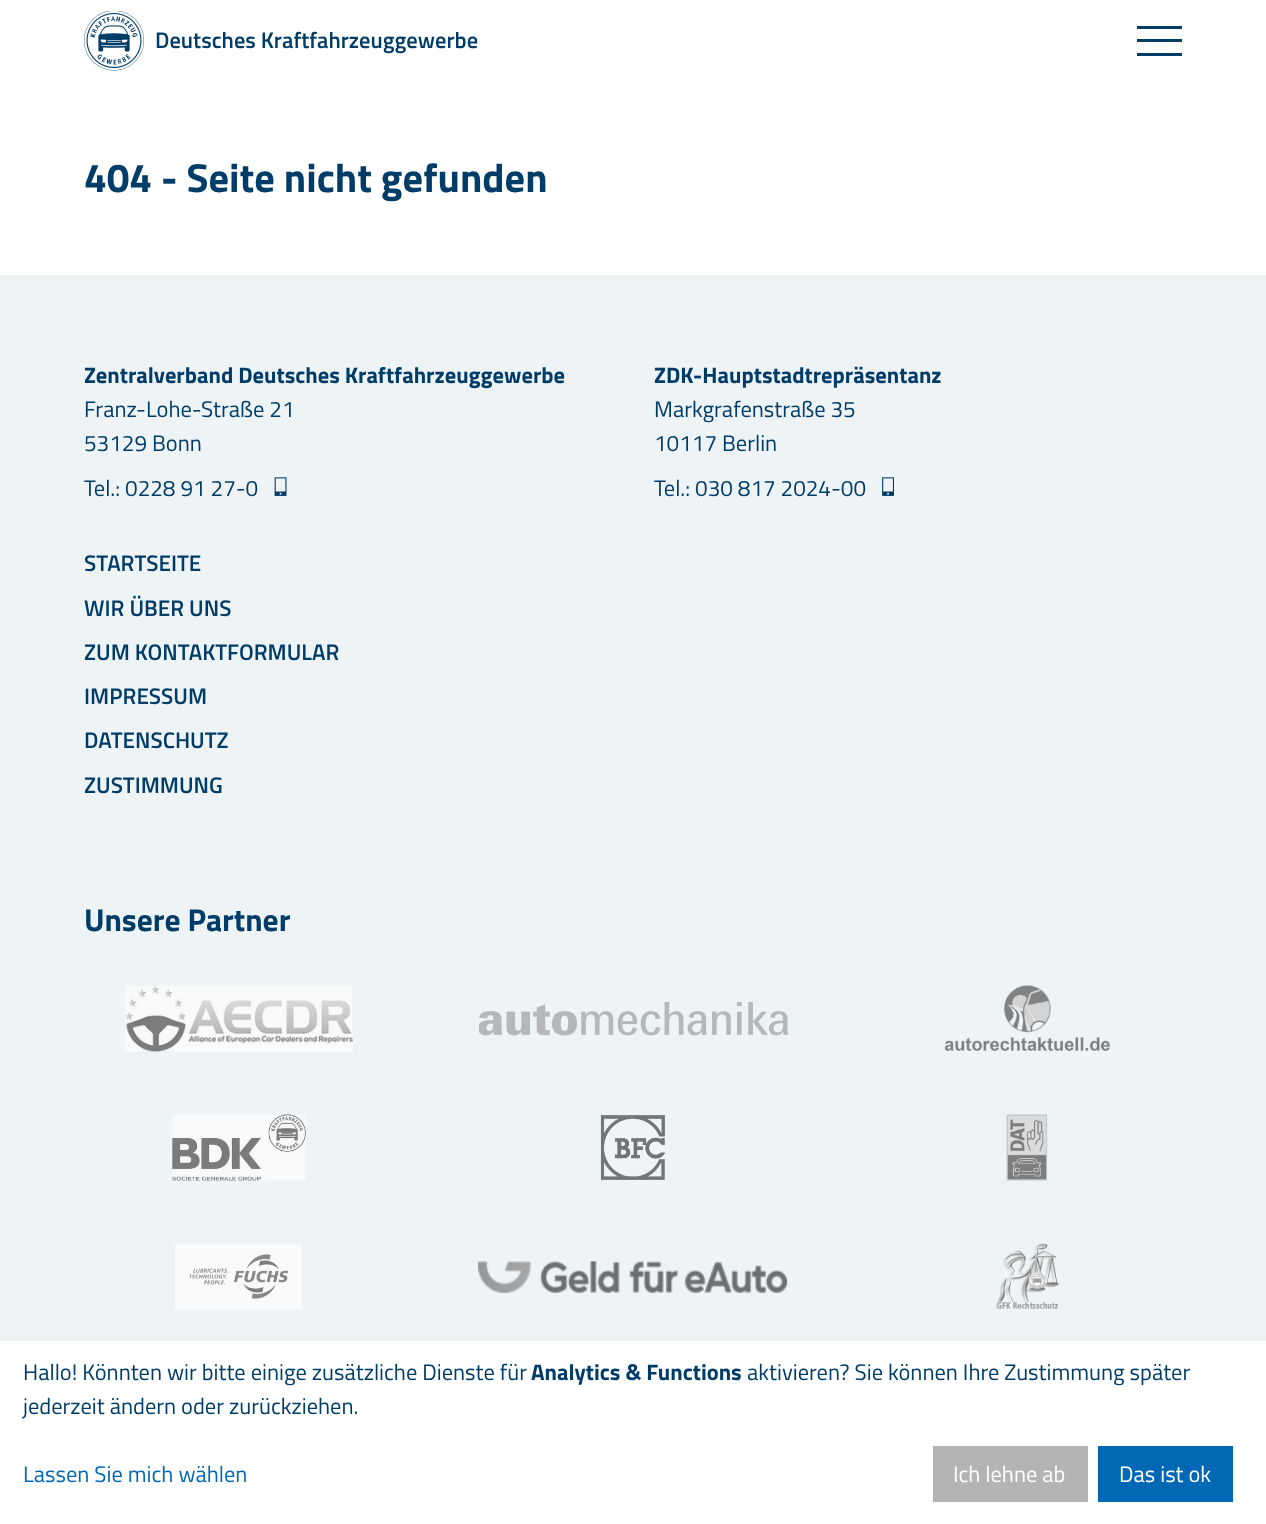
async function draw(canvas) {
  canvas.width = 1266
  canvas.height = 1524
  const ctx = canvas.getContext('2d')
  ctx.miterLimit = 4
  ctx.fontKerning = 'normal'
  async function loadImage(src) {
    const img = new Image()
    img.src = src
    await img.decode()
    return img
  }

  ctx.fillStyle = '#fff'
  ctx.fillRect(0, 0, 1266, 1524)
  ctx.drawImage(await loadImage('image0.png'), 84, 11, 60, 60)
  ctx.font = '600 22.5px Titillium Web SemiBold'
  ctx.fillStyle = '#003c68'
  ctx.fillText('Deutsches Kraftfahrzeuggewerbe', 155, 48)
  ctx.fillRect(1137, 26, 45, 3)
  ctx.fillRect(1137, 39, 45, 3)
  ctx.fillRect(1137, 53, 45, 3)
  ctx.font = 'bold 40.5px Titillium Web'
  ctx.fillText('404 - Seite nicht gefunden', 84, 192)
  ctx.fillStyle = '#eef3f6'
  ctx.fillRect(0, 275, 1266, 1066)
  ctx.font = 'bold 22.5px Titillium Web'
  ctx.fillStyle = '#003c68'
  ctx.fillText('Zentralverband Deutsches Kraftfahrzeuggewerbe', 84, 383)
  ctx.font = '22.5px Titillium Web'
  ctx.fillText('Franz-Lohe-Straße 21', 84, 417)
  ctx.fillText('53129 Bonn', 84, 451)
  ctx.fillText('Tel.: 0228 91 27-0', 84, 496)
  ctx.drawImage(await loadImage('image1.png'), 274, 477, 13, 19)
  ctx.font = 'bold 22.5px Titillium Web'
  ctx.fillText('ZDK-Hauptstadtrepräsentanz', 654, 383)
  ctx.font = '22.5px Titillium Web'
  ctx.fillText('Markgrafenstraße 35', 654, 417)
  ctx.fillText('10117 Berlin', 654, 451)
  ctx.fillText('Tel.: 030 817 2024-00', 654, 496)
  ctx.drawImage(await loadImage('image2.png'), 882, 477, 12, 19)
  ctx.font = '600 22.5px Titillium Web SemiBold'
  ctx.fillText('STARTSEITE', 84, 571)
  ctx.fillText('WIR ÜBER UNS', 84, 616)
  ctx.fillText('ZUM KONTAKTFORMULAR', 84, 660)
  ctx.fillText('IMPRESSUM', 84, 704)
  ctx.fillText('DATENSCHUTZ', 84, 748)
  ctx.fillText('ZUSTIMMUNG', 84, 793)
  ctx.font = 'bold 31.5px Titillium Web'
  ctx.fillText('Unsere Partner', 84, 931)
  ctx.drawImage(await loadImage('image3.png'), 125, 985, 228, 67)
  ctx.drawImage(await loadImage('image4.png'), 479, 1002, 309, 34)
  ctx.drawImage(await loadImage('image5.png'), 944, 985, 166, 67)
  ctx.drawImage(await loadImage('image6.png'), 172, 1114, 134, 67)
  ctx.drawImage(await loadImage('image7.png'), 600, 1115, 65, 65)
  ctx.drawImage(await loadImage('image8.png'), 1006, 1114, 42, 67)
  ctx.drawImage(await loadImage('image9.png'), 175, 1243, 127, 67)
  ctx.drawImage(await loadImage('image10.png'), 478, 1261, 310, 32)
  ctx.drawImage(await loadImage('image11.png'), 996, 1243, 63, 66)
  ctx.font = '22.5px Titillium Web'
  ctx.fillText('Hallo! Könnten wir bitte einige zusätzliche Dienste für', 23, 1380)
  ctx.font = 'bold 22.5px Titillium Web'
  ctx.fillText('Analytics & Functions', 531, 1380)
  ctx.font = '22.5px Titillium Web'
  ctx.fillText('aktivieren? Sie können Ihre Zustimmung später', 747, 1380)
  ctx.fillText('jederzeit ändern oder zurückziehen.', 23, 1414)
  ctx.fillStyle = '#0068b4'
  ctx.fillText('Lassen Sie mich wählen', 23, 1482)
  ctx.fillStyle = '#b4b4b4'
  ctx.fillRect(933, 1446, 155, 56)
  ctx.fillStyle = '#fff'
  ctx.fillText('Ich lehne ab', 953, 1482)
  ctx.fillStyle = '#0068b4'
  ctx.fillRect(1098, 1446, 135, 56)
  ctx.fillStyle = '#fff'
  ctx.fillText('Das ist ok', 1119, 1482)
}

draw(document.querySelector('canvas'))
